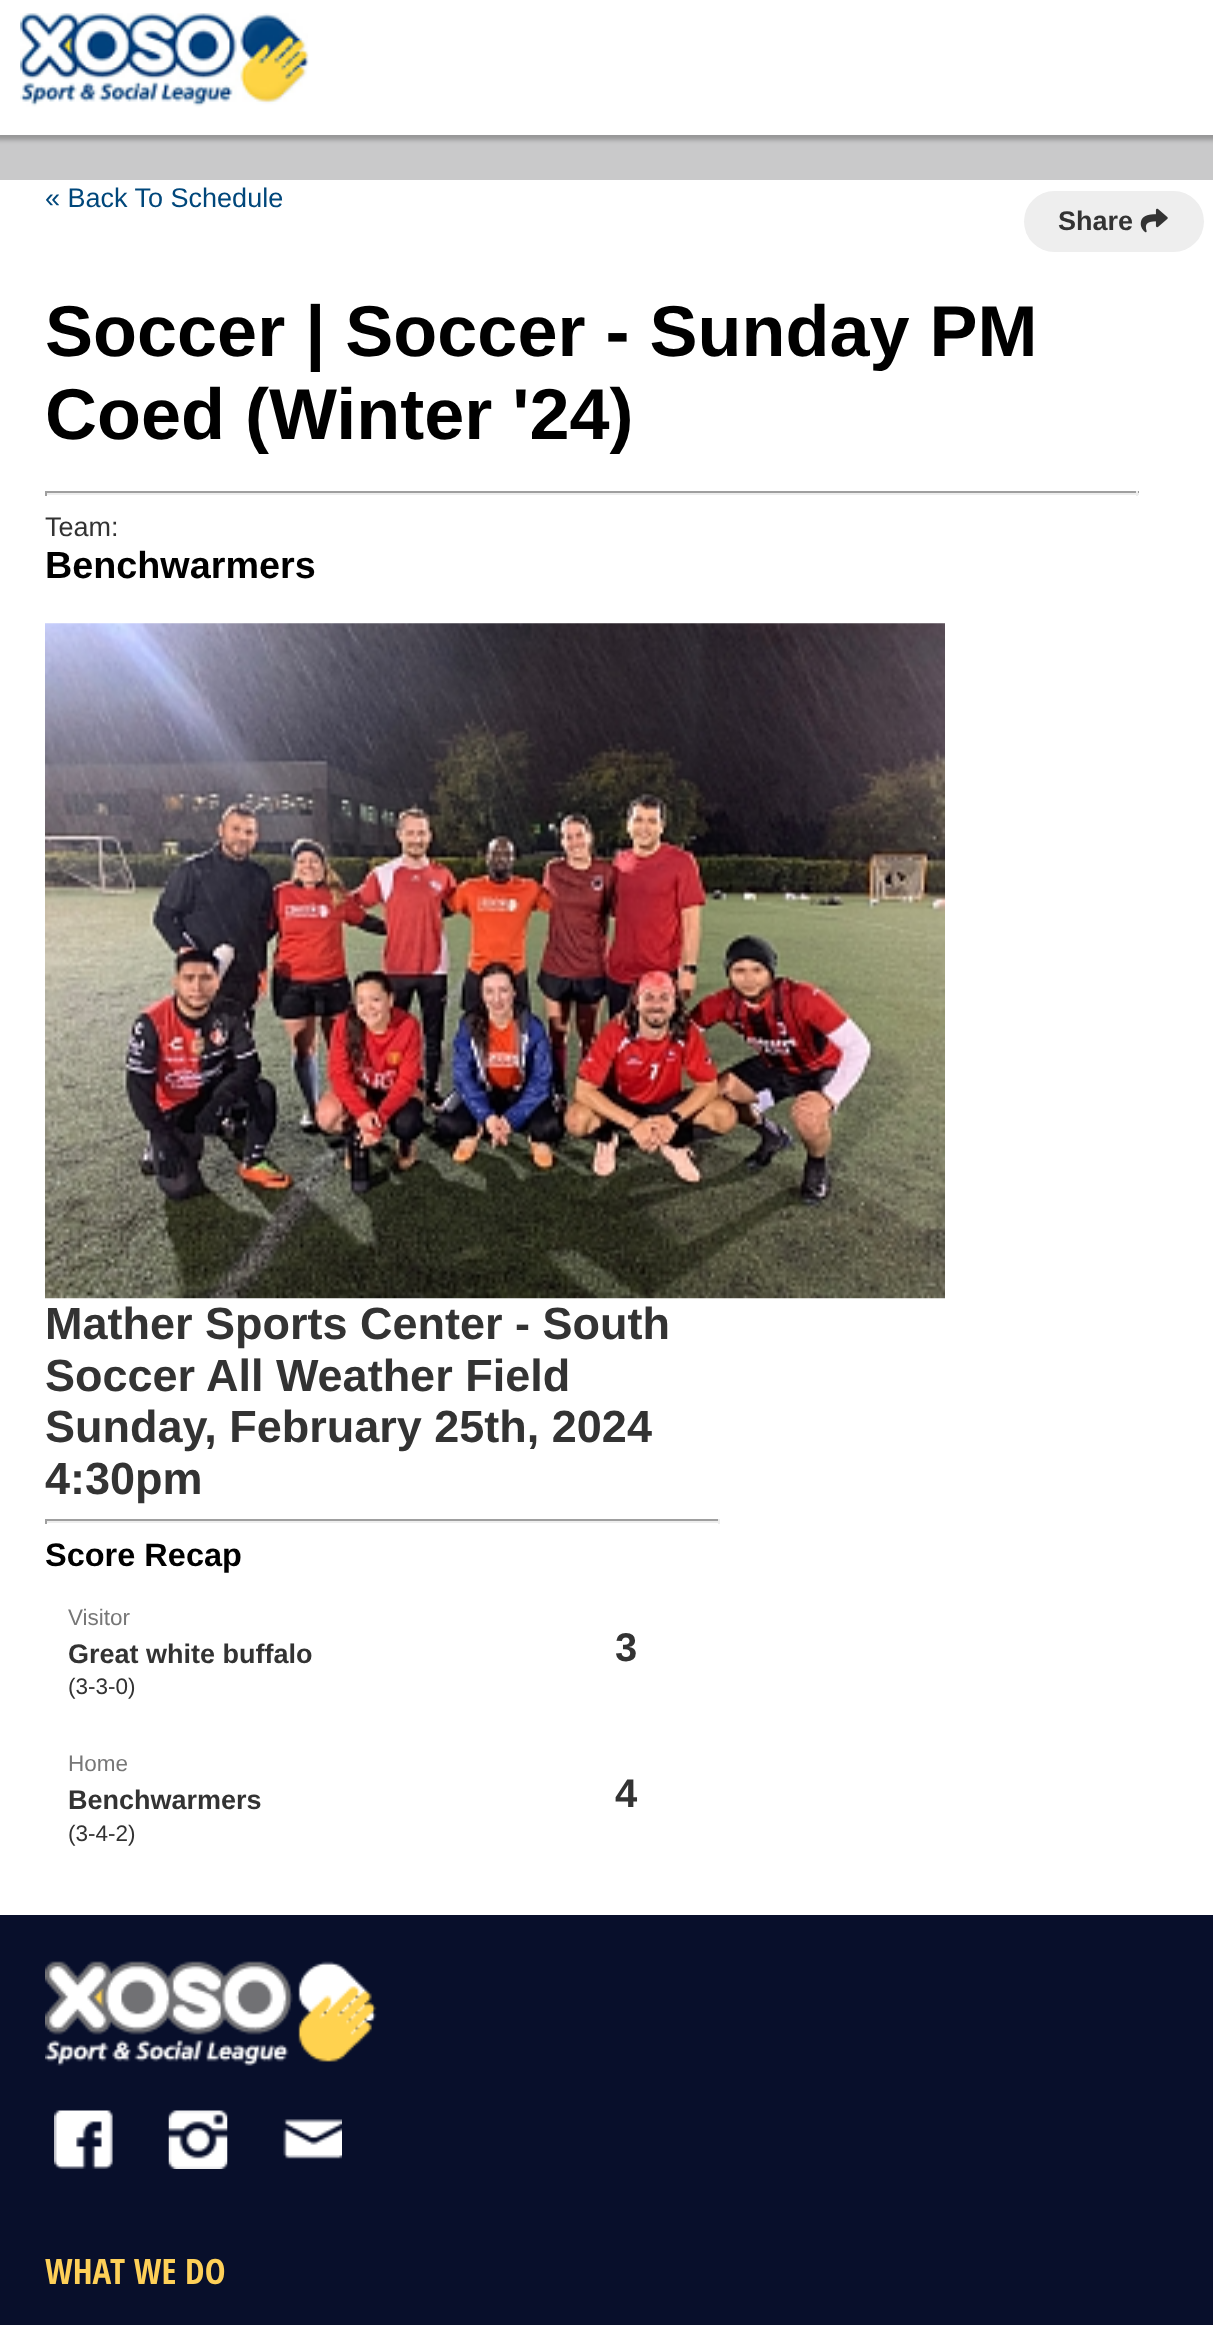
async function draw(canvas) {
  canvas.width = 1213
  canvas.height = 2325
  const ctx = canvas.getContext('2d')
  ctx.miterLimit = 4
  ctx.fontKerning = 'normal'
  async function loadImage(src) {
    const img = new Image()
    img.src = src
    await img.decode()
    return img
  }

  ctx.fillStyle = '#c9c9ca'
  ctx.fillRect(0, 0, 1213, 2325)
  ctx.fillStyle = '#00000040'
  ctx.filter = 'blur(2px)'
  ctx.beginPath()
  ctx.rect(-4, -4, 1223, 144)
  ctx.fill()
  ctx.filter = 'none'
  ctx.fillStyle = '#fff'
  ctx.fillRect(0, 0, 1213, 135)
  ctx.drawImage(await loadImage('image0.png'), 20, 13, 289, 94)
  ctx.fillRect(0, 180, 1213, 1735)
  ctx.font = '27px Liberation Sans'
  ctx.fillStyle = '#00477b'
  ctx.fillText('« Back To Schedule', 45, 207)
  ctx.fillStyle = '#eee'
  ctx.beginPath()
  ctx.roundRect(1024, 191, 180, 61, 30.5)
  ctx.fill()
  ctx.font = 'bold 27px Liberation Sans'
  ctx.fillStyle = '#333'
  ctx.fillText('Share', 1058, 230)
  ctx.drawImage(await loadImage('image1.png'), 1140, 208, 28, 25)
  ctx.font = 'bold 72px Liberation Sans'
  ctx.fillStyle = '#000'
  ctx.fillText('Soccer | Soccer - Sunday PM', 45, 356)
  ctx.fillText('Coed (Winter \'24)', 45, 439)
  ctx.fillStyle = '#9f9f9f'
  ctx.fillRect(45, 491, 1094, 2)
  ctx.fillStyle = '#eee'
  ctx.fillRect(1136, 491, 2, 5)
  ctx.fillRect(45, 493, 1094, 2)
  ctx.fillStyle = '#9f9f9f'
  ctx.fillRect(45, 491, 2, 5)
  ctx.font = '27px Liberation Sans'
  ctx.fillStyle = '#333'
  ctx.fillText('Team:', 45, 536)
  ctx.font = 'bold 37.75px Liberation Sans'
  ctx.fillStyle = '#000'
  ctx.fillText('Benchwarmers', 45, 578)
  ctx.drawImage(await loadImage('image2.png'), 45, 623, 900, 676)
  ctx.font = 'bold 45px Liberation Sans'
  ctx.fillStyle = '#333'
  ctx.fillText('Mather Sports Center - South', 45, 1339)
  ctx.fillText('Soccer All Weather Field', 45, 1391)
  ctx.fillText('Sunday, February 25th, 2024', 45, 1442)
  ctx.fillText('4:30pm', 45, 1494)
  ctx.fillStyle = '#9f9f9f'
  ctx.fillRect(45, 1519, 675, 2)
  ctx.fillStyle = '#eee'
  ctx.fillRect(718, 1519, 2, 5)
  ctx.fillRect(45, 1521, 675, 2)
  ctx.fillStyle = '#9f9f9f'
  ctx.fillRect(45, 1519, 2, 5)
  ctx.font = 'bold 32.5px Liberation Sans'
  ctx.fillStyle = '#000'
  ctx.fillText('Score Recap', 45, 1566)
  ctx.font = '22.5px Liberation Sans'
  ctx.fillStyle = '#777'
  ctx.fillText('Visitor', 68, 1625)
  ctx.font = 'bold 27px Liberation Sans'
  ctx.fillStyle = '#333'
  ctx.fillText('Great white buffalo', 68, 1663)
  ctx.font = '22.5px Liberation Sans'
  ctx.fillText('(3-3-0)', 68, 1694)
  ctx.font = 'bold 40px Liberation Sans'
  ctx.fillText('3', 615, 1661)
  ctx.font = '22.5px Liberation Sans'
  ctx.fillStyle = '#777'
  ctx.fillText('Home', 68, 1771)
  ctx.font = 'bold 27px Liberation Sans'
  ctx.fillStyle = '#333'
  ctx.fillText('Benchwarmers', 68, 1809)
  ctx.font = '22.5px Liberation Sans'
  ctx.fillText('(3-4-2)', 68, 1841)
  ctx.font = 'bold 40px Liberation Sans'
  ctx.fillText('4', 615, 1807)
  ctx.fillStyle = '#080f2b'
  ctx.fillRect(0, 1915, 1213, 410)
  ctx.drawImage(await loadImage('image3.png'), 45, 1961, 332, 105)
  ctx.drawImage(await loadImage('image4.png'), 54, 2110, 59, 59)
  ctx.drawImage(await loadImage('image5.png'), 168, 2110, 60, 59)
  ctx.drawImage(await loadImage('image6.png'), 283, 2119, 59, 40)
  ctx.font = 'bold 35px Open Sans Condensed'
  ctx.fillStyle = '#fed058'
  ctx.fillText('WHAT WE DO', 45, 2284)
}

draw(document.querySelector('canvas'))
